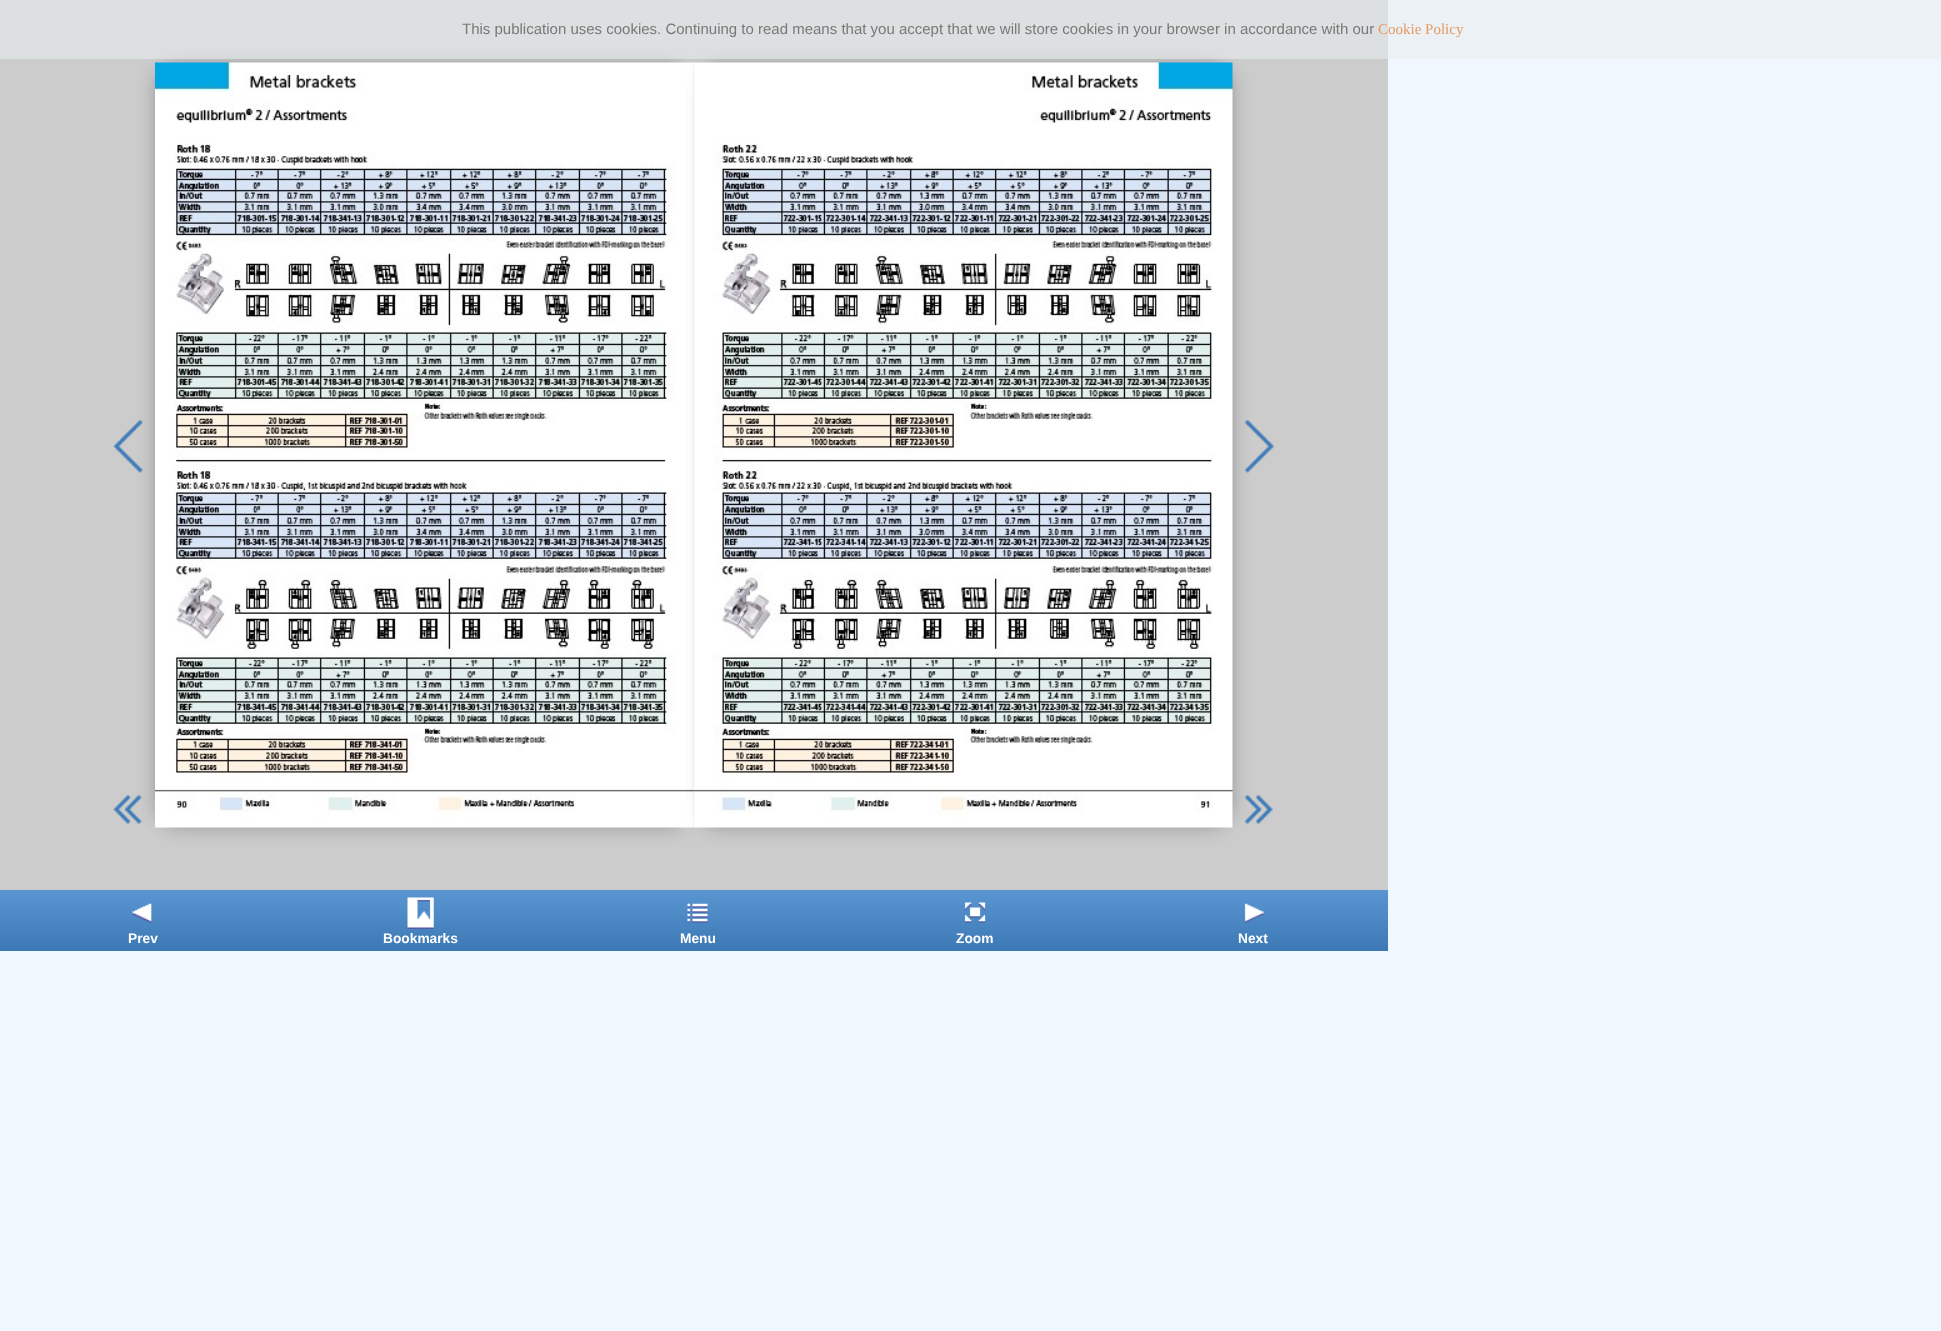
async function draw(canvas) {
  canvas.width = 1941
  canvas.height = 1331
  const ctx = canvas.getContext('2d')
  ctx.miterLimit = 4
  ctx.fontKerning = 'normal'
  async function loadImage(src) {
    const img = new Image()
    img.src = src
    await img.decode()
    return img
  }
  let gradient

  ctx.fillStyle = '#f1f7fe'
  ctx.fillRect(0, 0, 1941, 1331)
  ctx.fillStyle = '#ccc'
  ctx.fillRect(0, 0, 1388, 890)
  ctx.fillStyle = '#00000033'
  ctx.filter = 'blur(9.5px)'
  ctx.beginPath()
  ctx.rect(155, 75, 514, 740)
  ctx.fill()
  ctx.filter = 'none'
  ctx.filter = 'blur(9.5px)'
  ctx.beginPath()
  ctx.rect(168, 63, 513, 740)
  ctx.fill()
  ctx.filter = 'none'
  ctx.filter = 'blur(9.5px)'
  ctx.beginPath()
  ctx.rect(168, 88, 513, 740)
  ctx.fill()
  ctx.filter = 'none'
  ctx.drawImage(await loadImage('image4.png'), 155, 62, 539, 766)
  ctx.filter = 'blur(9.5px)'
  ctx.beginPath()
  ctx.rect(719, 75, 514, 740)
  ctx.fill()
  ctx.filter = 'none'
  ctx.filter = 'blur(9.5px)'
  ctx.beginPath()
  ctx.rect(706, 63, 514, 740)
  ctx.fill()
  ctx.filter = 'none'
  ctx.filter = 'blur(9.5px)'
  ctx.beginPath()
  ctx.rect(706, 88, 514, 740)
  ctx.fill()
  ctx.filter = 'none'
  ctx.fillStyle = '#e8ecef99'
  ctx.fillRect(0, 0, 1941, 59)
  ctx.font = '15px Liberation Sans'
  ctx.fillStyle = '#787878'
  ctx.fillText('This publication uses cookies. Continuing to read means that you accept that we will store cookies in your browser in accordance with our', 462, 34)
  ctx.font = '15px Liberation Serif'
  ctx.fillStyle = '#e79863'
  ctx.fillText('Cookie Policy', 1378, 34)
  ctx.drawImage(await loadImage('image0.png'), 113, 419, 30, 54)
  ctx.drawImage(await loadImage('image1.png'), 1244, 419, 30, 54)
  ctx.drawImage(await loadImage('image2.png'), 113, 794, 29, 30)
  ctx.drawImage(await loadImage('image3.png'), 1244, 794, 29, 30)
  ctx.drawImage(await loadImage('image5.png'), 693, 62, 540, 766)
  gradient = ctx.createLinearGradient(694, 890, 694, 951)
  gradient.addColorStop(0, '#5a96d2')
  gradient.addColorStop(1, '#3c78b4')
  ctx.fillStyle = gradient
  ctx.fillRect(0, 890, 1388, 61)
  ctx.drawImage(await loadImage('image6.png'), 132, 903, 20, 20)
  ctx.font = 'bold 13.75px Liberation Sans'
  ctx.fillStyle = '#fff'
  ctx.fillText('Prev', 128, 943)
  ctx.drawImage(await loadImage('image7.png'), 407, 897, 27, 32)
  ctx.fillText('Bookmarks', 383, 943)
  ctx.drawImage(await loadImage('image8.png'), 687, 903, 21, 20)
  ctx.fillText('Menu', 680, 943)
  ctx.drawImage(await loadImage('image9.png'), 964, 902, 22, 21)
  ctx.fillText('Zoom', 956, 943)
  ctx.drawImage(await loadImage('image10.png'), 1244, 903, 20, 20)
  ctx.fillText('Next', 1238, 943)
}

draw(document.querySelector('canvas'))
